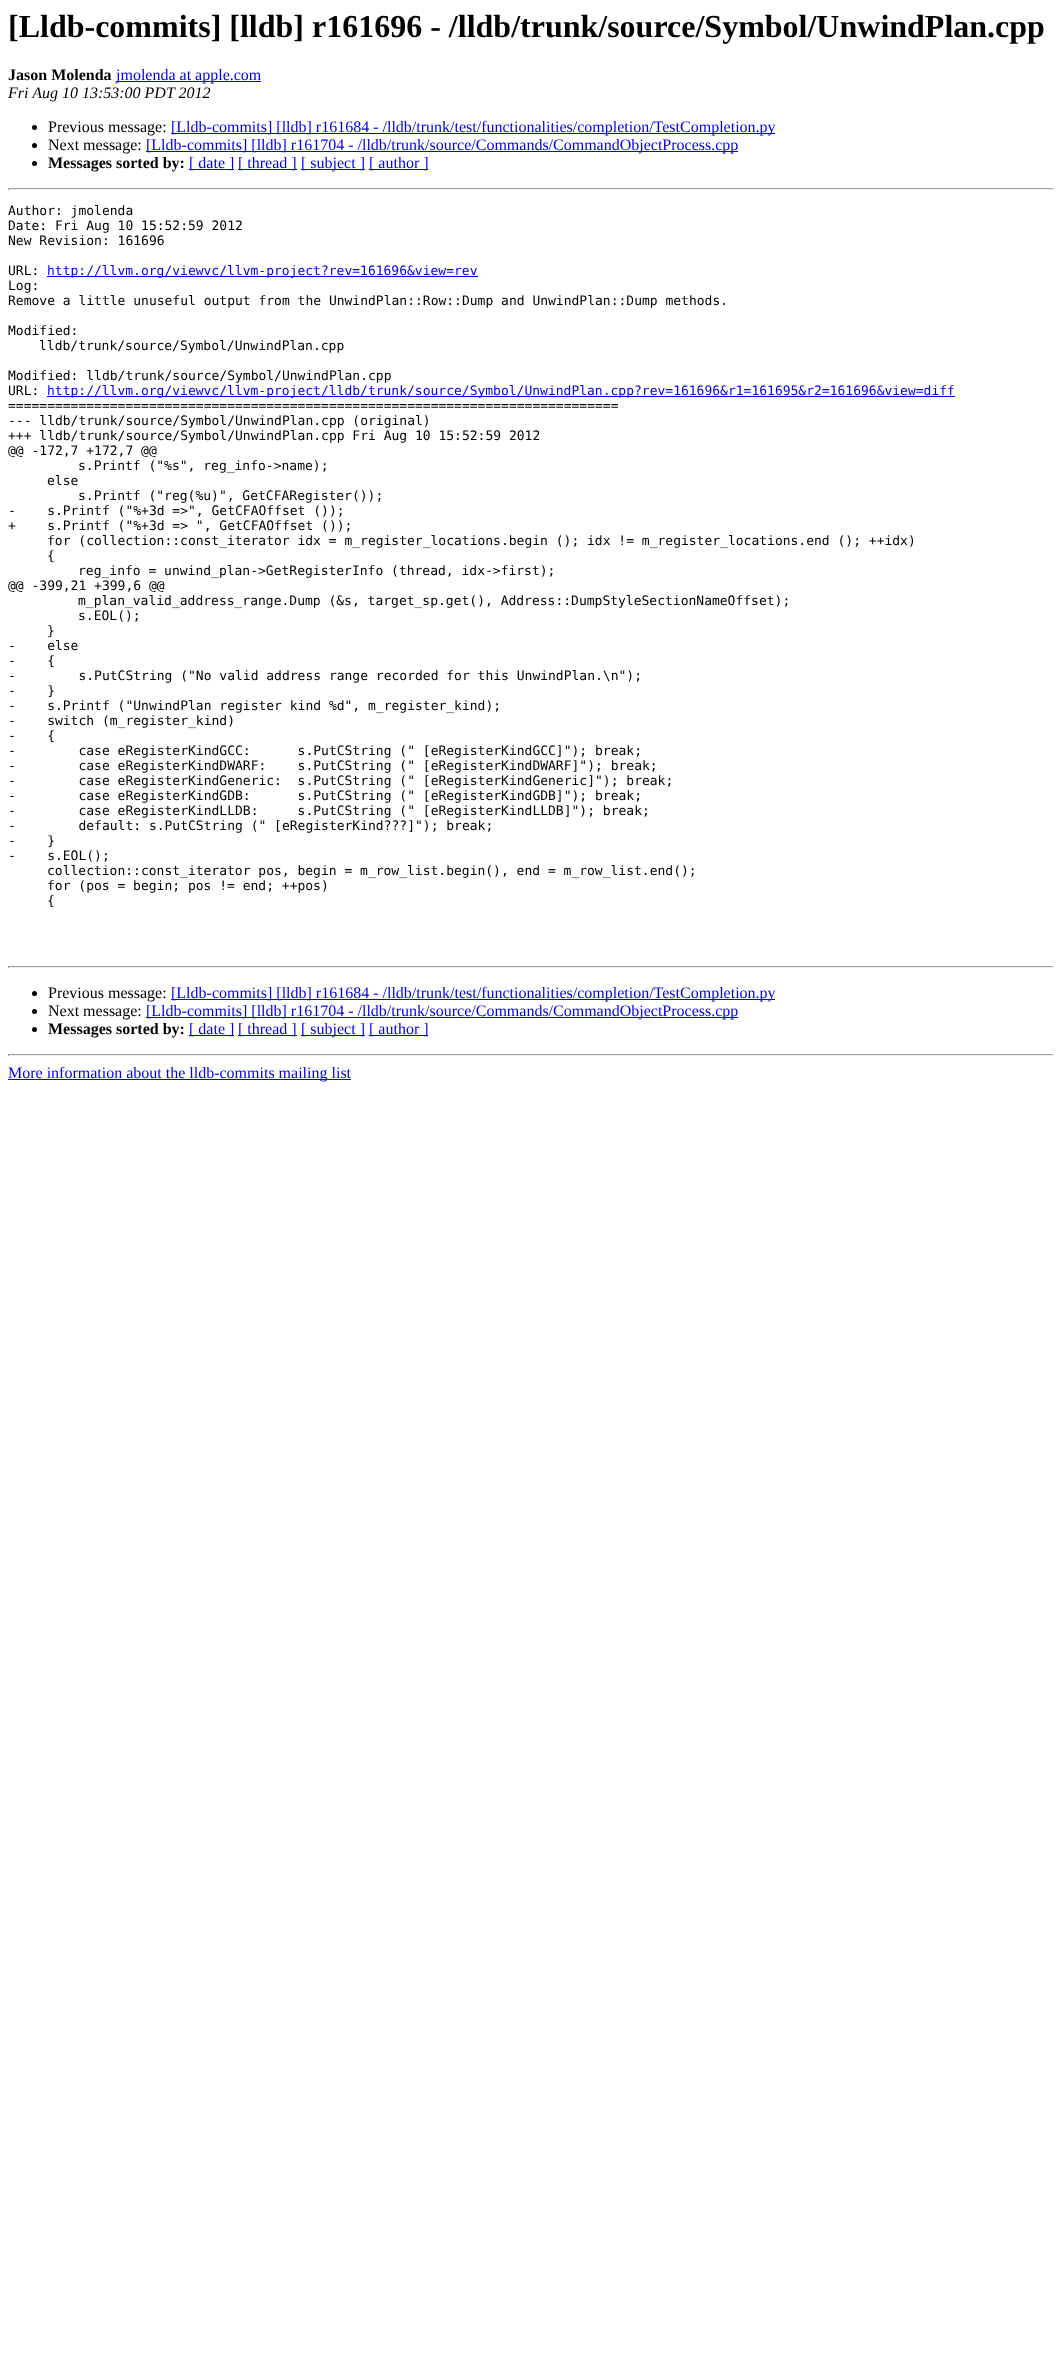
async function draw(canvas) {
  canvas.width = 1062
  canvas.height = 2366
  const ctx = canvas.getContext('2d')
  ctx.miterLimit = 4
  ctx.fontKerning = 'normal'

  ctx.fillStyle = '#fff'
  ctx.fillRect(0, 0, 1062, 2366)
  ctx.font = 'bold 32px Liberation Serif'
  ctx.fillStyle = '#000'
  ctx.fillText('[Lldb-commits] [lldb] r161696 - /lldb/trunk/source/Symbol/UnwindPlan.cpp', 8, 37)
  ctx.font = 'bold 16px Liberation Serif'
  ctx.fillText('Jason Molenda', 8, 80)
  ctx.fillStyle = '#00e'
  ctx.fillRect(116, 81, 145, 1)
  ctx.font = '16px Liberation Serif'
  ctx.fillText('jmolenda at apple.com', 116, 80)
  ctx.font = 'italic 16px Liberation Serif'
  ctx.fillStyle = '#000'
  ctx.fillText('Fri Aug 10 13:53:00 PDT 2012', 8, 98)
  ctx.beginPath()
  ctx.arc(34.5, 127.5, 2.5, 0, 2 * Math.PI)
  ctx.fill()
  ctx.font = '16px Liberation Serif'
  ctx.fillText('Previous message:', 48, 132)
  ctx.fillStyle = '#00e'
  ctx.fillRect(171, 133, 604, 1)
  ctx.fillText('[Lldb-commits] [lldb] r161684 - /lldb/trunk/test/functionalities/completion/TestCompletion.py', 171, 132)
  ctx.fillStyle = '#000'
  ctx.beginPath()
  ctx.arc(34.5, 145.5, 2.5, 0, 2 * Math.PI)
  ctx.fill()
  ctx.fillText('Next message:', 48, 150)
  ctx.fillStyle = '#00e'
  ctx.fillRect(146, 151, 592, 1)
  ctx.fillText('[Lldb-commits] [lldb] r161704 - /lldb/trunk/source/Commands/CommandObjectProcess.cpp', 146, 150)
  ctx.fillStyle = '#000'
  ctx.beginPath()
  ctx.arc(34.5, 163.5, 2.5, 0, 2 * Math.PI)
  ctx.fill()
  ctx.font = 'bold 16px Liberation Serif'
  ctx.fillText('Messages sorted by:', 48, 168)
  ctx.fillStyle = '#00e'
  ctx.fillRect(189, 169, 45, 1)
  ctx.font = '16px Liberation Serif'
  ctx.fillText('[ date ]', 189, 168)
  ctx.fillRect(238, 169, 59, 1)
  ctx.fillText('[ thread ]', 238, 168)
  ctx.fillRect(301, 169, 64, 1)
  ctx.fillText('[ subject ]', 301, 168)
  ctx.fillRect(369, 169, 59, 1)
  ctx.fillText('[ author ]', 369, 168)
  ctx.fillStyle = '#9f9f9f'
  ctx.fillRect(8, 188, 1046, 1)
  ctx.fillStyle = '#eee'
  ctx.fillRect(1053, 188, 1, 2)
  ctx.fillRect(8, 189, 1046, 1)
  ctx.fillStyle = '#9f9f9f'
  ctx.fillRect(8, 188, 1, 2)
  ctx.font = '13px DejaVu Sans Mono'
  ctx.fillStyle = '#000'
  ctx.fillText('Author: jmolenda', 8, 215)
  ctx.fillText('Date: Fri Aug 10 15:52:59 2012', 8, 230)
  ctx.fillText('New Revision: 161696', 8, 245)
  ctx.fillText('URL:', 8, 275)
  ctx.fillStyle = '#00e'
  ctx.fillRect(47, 276, 431, 1)
  ctx.fillText('http://llvm.org/viewvc/llvm-project?rev=161696&view=rev', 47, 275)
  ctx.fillStyle = '#000'
  ctx.fillText('Log:', 8, 290)
  ctx.fillText('Remove a little unuseful output from the UnwindPlan::Row::Dump and UnwindPlan::Dump methods.', 8, 305)
  ctx.fillText('Modified:', 8, 335)
  ctx.fillText('lldb/trunk/source/Symbol/UnwindPlan.cpp', 39, 350)
  ctx.fillText('Modified: lldb/trunk/source/Symbol/UnwindPlan.cpp', 8, 380)
  ctx.fillText('URL:', 8, 395)
  ctx.fillStyle = '#00e'
  ctx.fillRect(47, 396, 908, 1)
  ctx.fillText('http://llvm.org/viewvc/llvm-project/lldb/trunk/source/Symbol/UnwindPlan.cpp?rev=161696&r1=161695&r2=161696&view=diff', 47, 395)
  ctx.fillStyle = '#000'
  ctx.fillText('==============================================================================', 8, 410)
  ctx.fillText('--- lldb/trunk/source/Symbol/UnwindPlan.cpp (original)', 8, 425)
  ctx.fillText('+++ lldb/trunk/source/Symbol/UnwindPlan.cpp Fri Aug 10 15:52:59 2012', 8, 440)
  ctx.fillText('@@ -172,7 +172,7 @@', 8, 455)
  ctx.fillText('s.Printf ("%s", reg_info->name);', 78, 470)
  ctx.fillText('else', 47, 485)
  ctx.fillText('s.Printf ("reg(%u)", GetCFARegister());', 78, 500)
  ctx.fillText('-    s.Printf ("%+3d =>", GetCFAOffset ());', 8, 515)
  ctx.fillText('+    s.Printf ("%+3d => ", GetCFAOffset ());', 8, 530)
  ctx.fillText('for (collection::const_iterator idx = m_register_locations.begin (); idx != m_register_locations.end (); ++idx)', 47, 545)
  ctx.fillText('{', 47, 560)
  ctx.fillText('reg_info = unwind_plan->GetRegisterInfo (thread, idx->first);', 78, 575)
  ctx.fillText('@@ -399,21 +399,6 @@', 8, 590)
  ctx.fillText('m_plan_valid_address_range.Dump (&s, target_sp.get(), Address::DumpStyleSectionNameOffset);', 78, 605)
  ctx.fillText('s.EOL();', 78, 620)
  ctx.fillText('}', 47, 635)
  ctx.fillText('-    else', 8, 650)
  ctx.fillText('-    {', 8, 665)
  ctx.fillText('-        s.PutCString ("No valid address range recorded for this UnwindPlan.\\n");', 8, 680)
  ctx.fillText('-    }', 8, 695)
  ctx.fillText('-    s.Printf ("UnwindPlan register kind %d", m_register_kind);', 8, 710)
  ctx.fillText('-    switch (m_register_kind)', 8, 725)
  ctx.fillText('-    {', 8, 740)
  ctx.fillText('-        case eRegisterKindGCC:      s.PutCString (" [eRegisterKindGCC]"); break;', 8, 755)
  ctx.fillText('-        case eRegisterKindDWARF:    s.PutCString (" [eRegisterKindDWARF]"); break;', 8, 770)
  ctx.fillText('-        case eRegisterKindGeneric:  s.PutCString (" [eRegisterKindGeneric]"); break;', 8, 785)
  ctx.fillText('-        case eRegisterKindGDB:      s.PutCString (" [eRegisterKindGDB]"); break;', 8, 800)
  ctx.fillText('-        case eRegisterKindLLDB:     s.PutCString (" [eRegisterKindLLDB]"); break;', 8, 815)
  ctx.fillText('-        default: s.PutCString (" [eRegisterKind???]"); break;', 8, 830)
  ctx.fillText('-    }', 8, 845)
  ctx.fillText('-    s.EOL();', 8, 860)
  ctx.fillText('collection::const_iterator pos, begin = m_row_list.begin(), end = m_row_list.end();', 47, 875)
  ctx.fillText('for (pos = begin; pos != end; ++pos)', 47, 890)
  ctx.fillText('{', 47, 905)
  ctx.fillStyle = '#9f9f9f'
  ctx.fillRect(8, 966, 1046, 1)
  ctx.fillStyle = '#eee'
  ctx.fillRect(1053, 966, 1, 2)
  ctx.fillRect(8, 967, 1046, 1)
  ctx.fillStyle = '#9f9f9f'
  ctx.fillRect(8, 966, 1, 2)
  ctx.fillStyle = '#000'
  ctx.beginPath()
  ctx.arc(34.5, 993.5, 2.5, 0, 2 * Math.PI)
  ctx.fill()
  ctx.font = '16px Liberation Serif'
  ctx.fillText('Previous message:', 48, 998)
  ctx.fillStyle = '#00e'
  ctx.fillRect(171, 999, 604, 1)
  ctx.fillText('[Lldb-commits] [lldb] r161684 - /lldb/trunk/test/functionalities/completion/TestCompletion.py', 171, 998)
  ctx.fillStyle = '#000'
  ctx.beginPath()
  ctx.arc(34.5, 1011.5, 2.5, 0, 2 * Math.PI)
  ctx.fill()
  ctx.fillText('Next message:', 48, 1016)
  ctx.fillStyle = '#00e'
  ctx.fillRect(146, 1017, 592, 1)
  ctx.fillText('[Lldb-commits] [lldb] r161704 - /lldb/trunk/source/Commands/CommandObjectProcess.cpp', 146, 1016)
  ctx.fillStyle = '#000'
  ctx.beginPath()
  ctx.arc(34.5, 1029.5, 2.5, 0, 2 * Math.PI)
  ctx.fill()
  ctx.font = 'bold 16px Liberation Serif'
  ctx.fillText('Messages sorted by:', 48, 1034)
  ctx.fillStyle = '#00e'
  ctx.fillRect(189, 1035, 45, 1)
  ctx.font = '16px Liberation Serif'
  ctx.fillText('[ date ]', 189, 1034)
  ctx.fillRect(238, 1035, 59, 1)
  ctx.fillText('[ thread ]', 238, 1034)
  ctx.fillRect(301, 1035, 64, 1)
  ctx.fillText('[ subject ]', 301, 1034)
  ctx.fillRect(369, 1035, 59, 1)
  ctx.fillText('[ author ]', 369, 1034)
  ctx.fillStyle = '#9f9f9f'
  ctx.fillRect(8, 1054, 1046, 1)
  ctx.fillStyle = '#eee'
  ctx.fillRect(1053, 1054, 1, 2)
  ctx.fillRect(8, 1055, 1046, 1)
  ctx.fillStyle = '#9f9f9f'
  ctx.fillRect(8, 1054, 1, 2)
  ctx.fillStyle = '#00e'
  ctx.fillRect(8, 1079, 343, 1)
  ctx.fillText('More information about the lldb-commits mailing list', 8, 1078)
}

draw(document.querySelector('canvas'))
